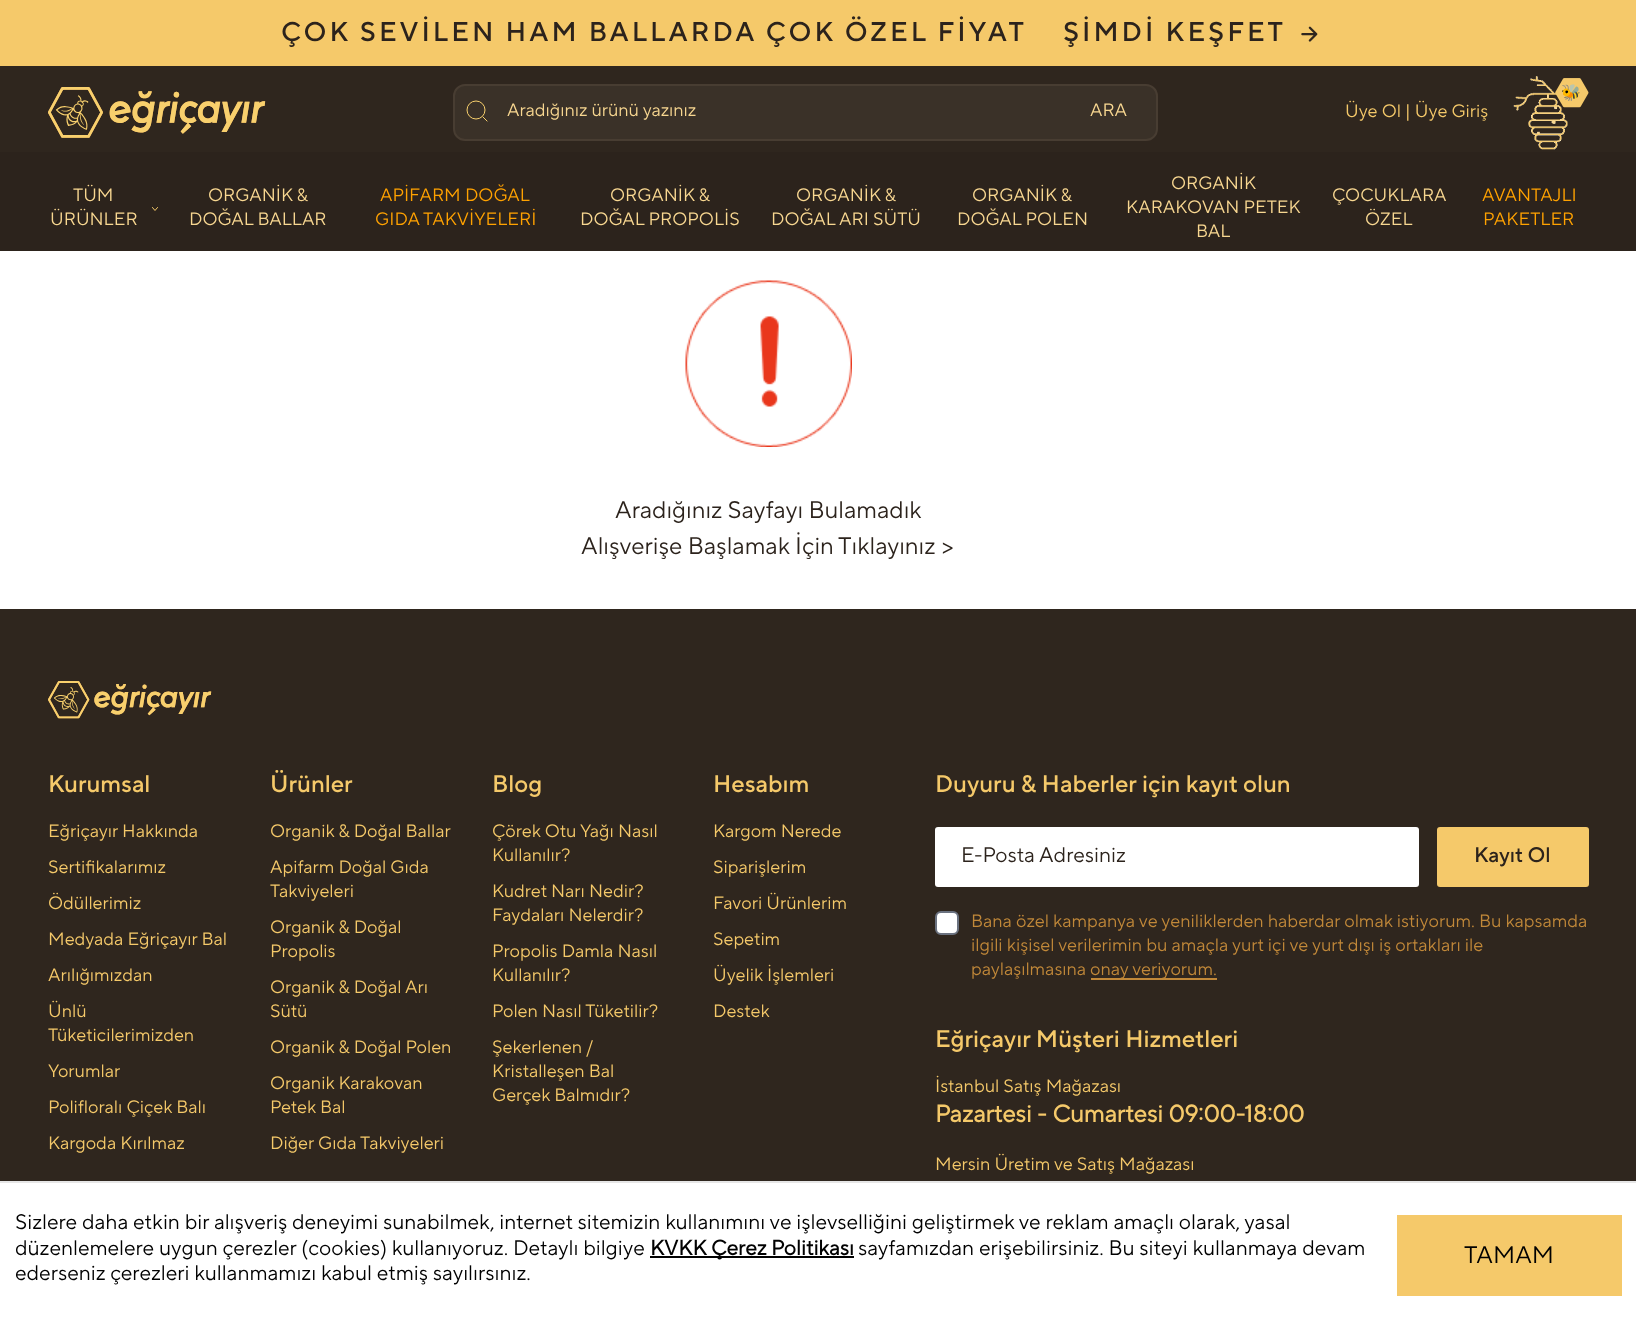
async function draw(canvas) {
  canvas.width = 1636
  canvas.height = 1328
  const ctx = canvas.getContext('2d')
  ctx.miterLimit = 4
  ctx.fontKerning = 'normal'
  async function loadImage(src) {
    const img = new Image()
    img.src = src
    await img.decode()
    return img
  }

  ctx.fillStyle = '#fff'
  ctx.fillRect(0, 0, 1636, 1328)
  ctx.fillStyle = '#f5c96a'
  ctx.fillRect(0, 0, 1636, 66)
  ctx.letterSpacing = '3px'
  ctx.font = '500 27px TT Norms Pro'
  ctx.fillStyle = '#2c231c'
  ctx.fillText('ÇOK SEVİLEN HAM BALLARDA ÇOK ÖZEL FİYAT', 281, 41)
  ctx.fillText('ŞİMDİ KEŞFET', 1063, 41)
  ctx.drawImage(await loadImage('image0.png'), 1301, 26, 17, 16)
  ctx.fillStyle = '#2f261e'
  ctx.fillRect(0, 66, 1636, 86)
  ctx.drawImage(await loadImage('image1.png'), 48, 87, 218, 51)
  ctx.fillStyle = '#3a3128'
  ctx.beginPath()
  ctx.roundRect(454, 85, 703, 55, 11)
  ctx.fill()
  ctx.strokeStyle = '#483d32'
  ctx.lineWidth = 2
  ctx.stroke()
  ctx.beginPath()
  ctx.arc(476, 110, 9, 0, 2 * Math.PI)
  ctx.strokeStyle = '#f8d06d'
  ctx.lineWidth = 1
  ctx.stroke()
  ctx.beginPath()
  ctx.moveTo(483, 117)
  ctx.lineTo(487, 121)
  ctx.lineCap = 'square'
  ctx.stroke()
  ctx.letterSpacing = '0px'
  ctx.font = '18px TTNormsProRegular'
  ctx.fillStyle = '#f8d791'
  ctx.fillText('Aradığınız ürünü yazınız', 507, 116)
  ctx.fillText('ARA', 1090, 116)
  ctx.drawImage(await loadImage('image2.png'), 1513, 76, 74, 74)
  ctx.drawImage(await loadImage('image3.png'), 1555, 78, 34, 30)
  ctx.font = '16px Noto Color Emoji'
  ctx.fillStyle = '#2c231c'
  ctx.fillText('🐝', 1561, 98)
  ctx.font = '18px TTNormsProRegular'
  ctx.fillStyle = '#f5c96a'
  ctx.fillText('Üye Ol | Üye Giriş', 1345, 117)
  ctx.fillStyle = '#2c231c'
  ctx.fillRect(0, 152, 1636, 99)
  ctx.fillStyle = '#f8d791'
  ctx.fillText('TÜM', 73, 201)
  ctx.fillText('ÜRÜNLER', 50, 225)
  ctx.beginPath()
  ctx.moveTo(152.5, 207.5)
  ctx.lineTo(155, 210.5)
  ctx.lineTo(157.5, 207.5)
  ctx.strokeStyle = '#f5c96a'
  ctx.lineCap = 'round'
  ctx.lineJoin = 'round'
  ctx.stroke()
  ctx.fillText('ORGANİK &', 208, 201)
  ctx.fillText('DOĞAL BALLAR', 189, 225)
  ctx.fillStyle = '#ffa200'
  ctx.fillText('APİFARM DOĞAL', 380, 201)
  ctx.fillText('GIDA TAKVİYELERİ', 375, 225)
  ctx.fillStyle = '#f8d791'
  ctx.fillText('ORGANİK &', 610, 201)
  ctx.fillText('DOĞAL PROPOLİS', 580, 225)
  ctx.fillText('ORGANİK &', 796, 201)
  ctx.fillText('DOĞAL ARI SÜTÜ', 771, 225)
  ctx.fillText('ORGANİK &', 972, 201)
  ctx.fillText('DOĞAL POLEN', 957, 225)
  ctx.fillText('ORGANİK', 1171, 189)
  ctx.fillText('KARAKOVAN PETEK', 1126, 213)
  ctx.fillText('BAL', 1196, 237)
  ctx.fillText('ÇOCUKLARA', 1332, 201)
  ctx.fillText('ÖZEL', 1365, 225)
  ctx.fillStyle = '#ffa200'
  ctx.fillText('AVANTAJLI', 1482, 201)
  ctx.fillText('PAKETLER', 1483, 225)
  ctx.drawImage(await loadImage('image4.png'), 685, 280, 167, 167)
  ctx.font = '24px TTNormsProRegular'
  ctx.fillStyle = '#2c231c'
  ctx.fillText('Aradığınız Sayfayı Bulamadık', 615, 518)
  ctx.fillText('Alışverişe Başlamak İçin', 581, 554)
  ctx.fillText('Tıklayınız >', 838, 554)
  ctx.fillStyle = '#2f261e'
  ctx.fillRect(0, 609, 1636, 572)
  ctx.drawImage(await loadImage('image5.png'), 48, 681, 164, 38)
  ctx.font = '500 24px TT Norms Pro'
  ctx.fillStyle = '#f5c96a'
  ctx.fillText('Kurumsal', 48, 792)
  ctx.font = '18px TTNormsProRegular'
  ctx.fillText('Eğriçayır Hakkında', 48, 837)
  ctx.fillText('Sertifikalarımız', 48, 873)
  ctx.fillText('Ödüllerimiz', 48, 909)
  ctx.fillText('Medyada Eğriçayır Bal', 48, 945)
  ctx.fillText('Arılığımızdan', 48, 981)
  ctx.fillText('Ünlü', 48, 1017)
  ctx.fillText('Tüketicilerimizden', 48, 1041)
  ctx.fillText('Yorumlar', 48, 1077)
  ctx.fillText('Polifloralı Çiçek Balı', 48, 1113)
  ctx.fillText('Kargoda Kırılmaz', 48, 1149)
  ctx.font = '500 24px TT Norms Pro'
  ctx.fillText('Ürünler', 270, 792)
  ctx.font = '18px TTNormsProRegular'
  ctx.fillText('Organik & Doğal Ballar', 270, 837)
  ctx.fillText('Apifarm Doğal Gıda', 270, 873)
  ctx.fillText('Takviyeleri', 270, 897)
  ctx.fillText('Organik & Doğal', 270, 933)
  ctx.fillText('Propolis', 270, 957)
  ctx.fillText('Organik & Doğal Arı', 270, 993)
  ctx.fillText('Sütü', 270, 1017)
  ctx.fillText('Organik & Doğal Polen', 270, 1053)
  ctx.fillText('Organik Karakovan', 270, 1089)
  ctx.fillText('Petek Bal', 270, 1113)
  ctx.fillText('Diğer Gıda Takviyeleri', 270, 1149)
  ctx.font = '500 24px TT Norms Pro'
  ctx.fillText('Blog', 492, 792)
  ctx.font = '18px TTNormsProRegular'
  ctx.fillText('Çörek Otu Yağı Nasıl', 492, 837)
  ctx.fillText('Kullanılır?', 492, 861)
  ctx.fillText('Kudret Narı Nedir?', 492, 897)
  ctx.fillText('Faydaları Nelerdir?', 492, 921)
  ctx.fillText('Propolis Damla Nasıl', 492, 957)
  ctx.fillText('Kullanılır?', 492, 981)
  ctx.fillText('Polen Nasıl Tüketilir?', 492, 1017)
  ctx.fillText('Şekerlenen /', 492, 1053)
  ctx.fillText('Kristalleşen Bal', 492, 1077)
  ctx.fillText('Gerçek Balmıdır?', 492, 1101)
  ctx.font = '500 24px TT Norms Pro'
  ctx.fillText('Hesabım', 713, 792)
  ctx.font = '18px TTNormsProRegular'
  ctx.fillText('Kargom Nerede', 713, 837)
  ctx.fillText('Siparişlerim', 713, 873)
  ctx.fillText('Favori Ürünlerim', 713, 909)
  ctx.fillText('Sepetim', 713, 945)
  ctx.fillText('Üyelik İşlemleri', 713, 981)
  ctx.fillText('Destek', 713, 1017)
  ctx.font = '500 24px TT Norms Pro'
  ctx.fillText('Duyuru & Haberler için kayıt olun', 935, 792)
  ctx.fillStyle = '#fff'
  ctx.beginPath()
  ctx.roundRect(935, 827, 484, 60, 3)
  ctx.fill()
  ctx.font = '21px TTNormsProRegular'
  ctx.fillStyle = '#2c231c'
  ctx.fillText('E-Posta Adresiniz', 961, 862)
  ctx.fillStyle = '#f5c96a'
  ctx.beginPath()
  ctx.roundRect(1437, 827, 152, 60, 3)
  ctx.fill()
  ctx.font = '500 21px TT Norms Pro'
  ctx.fillStyle = '#2c231c'
  ctx.fillText('Kayıt Ol', 1474, 862)
  ctx.fillStyle = '#fff'
  ctx.beginPath()
  ctx.roundRect(936, 912, 22, 22, 5)
  ctx.fill()
  ctx.strokeStyle = '#6b7280'
  ctx.lineWidth = 2
  ctx.lineJoin = 'miter'
  ctx.stroke()
  ctx.font = '18px TTNormsProRegular'
  ctx.fillStyle = '#c18839'
  ctx.fillText('Bana özel kampanya ve yeniliklerden haberdar olmak istiyorum. Bu kapsamda', 971, 927)
  ctx.fillText('ilgili kişisel verilerimin bu amaçla yurt içi ve yurt dışı iş ortakları ile', 971, 951)
  ctx.fillText('paylaşılmasına', 971, 975)
  ctx.fillRect(1091, 978, 126, 2)
  ctx.fillText('onay veriyorum.', 1090, 975)
  ctx.font = '500 24px TT Norms Pro'
  ctx.fillStyle = '#f5c96a'
  ctx.fillText('Eğriçayır Müşteri Hizmetleri', 935, 1047)
  ctx.font = '18px TTNormsProRegular'
  ctx.fillText('İstanbul Satış Mağazası', 935, 1092)
  ctx.font = 'bold 24px TTNormsProRegular'
  ctx.fillText('Pazartesi - Cumartesi 09:00-18:00', 935, 1122)
  ctx.font = '18px TTNormsProRegular'
  ctx.fillText('Mersin Üretim ve Satış Mağazası', 935, 1170)
  ctx.fillStyle = '#e6e6e6'
  ctx.fillRect(0, 1181, 1636, 2)
  ctx.font = '21px TTNormsProRegular'
  ctx.fillStyle = '#010101'
  ctx.fillText('Sizlere daha etkin bir alışveriş deneyimi sunabilmek, internet sitemizin kullanımını ve işlevselliğini geliştirmek ve reklam amaçlı olarak, yasal', 15, 1229)
  ctx.fillText('düzenlemelere uygun çerezler (cookies) kullanıyoruz. Detaylı bilgiye', 15, 1255)
  ctx.fillRect(650, 1256, 204, 2)
  ctx.font = 'bold 21px TTNormsProRegular'
  ctx.fillText('KVKK Çerez Politikası', 650, 1255)
  ctx.font = '21px TTNormsProRegular'
  ctx.fillText('sayfamızdan erişebilirsiniz. Bu siteyi kullanmaya devam', 858, 1255)
  ctx.fillText('ederseniz çerezleri kullanmamızı kabul etmiş sayılırsınız.', 15, 1280)
  ctx.fillStyle = '#f5c96a'
  ctx.fillRect(1397, 1215, 225, 81)
  ctx.font = '24px TTNormsProRegular'
  ctx.fillStyle = '#010101'
  ctx.fillText('TAMAM', 1464, 1263)
}

draw(document.querySelector('canvas'))
